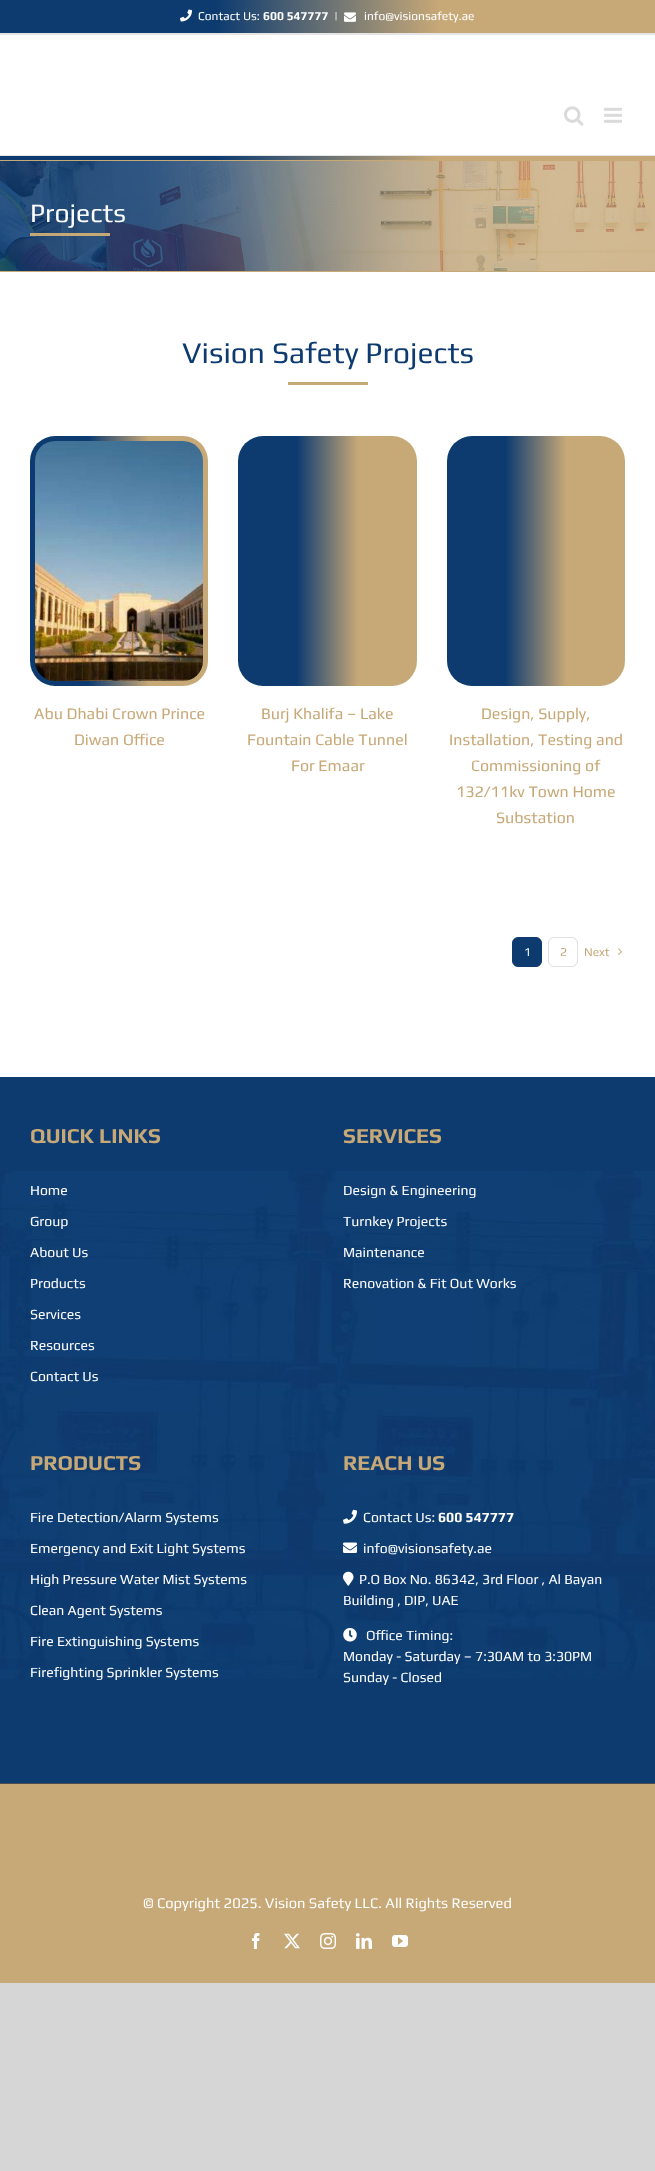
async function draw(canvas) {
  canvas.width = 655
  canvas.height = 2171
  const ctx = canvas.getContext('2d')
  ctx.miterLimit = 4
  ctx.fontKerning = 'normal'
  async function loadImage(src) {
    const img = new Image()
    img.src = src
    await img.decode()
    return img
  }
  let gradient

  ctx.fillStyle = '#d7d6d6'
  ctx.fillRect(0, 0, 655, 2171)
  ctx.fillStyle = '#fff'
  ctx.fillRect(0, 35, 655, 1042)
  ctx.drawImage(await loadImage('image0.png'), 0, 156, 655, 4)
  gradient = ctx.createLinearGradient(0, 17, 655, 17)
  gradient.addColorStop(0, '#0d3b70')
  gradient.addColorStop(0.33, '#0d3b70')
  gradient.addColorStop(0.67, '#c7a877')
  gradient.addColorStop(1, '#c7a877')
  ctx.fillStyle = gradient
  ctx.fillRect(0, 0, 655, 33)
  ctx.fillStyle = '#e5e5e5'
  ctx.fillRect(0, 33, 655, 2)
  ctx.drawImage(await loadImage('image1.png'), 180, 9, 12, 13)
  ctx.font = '12px Play'
  ctx.fillStyle = '#fff'
  ctx.fillText('Contact Us:', 198, 20)
  ctx.font = 'bold 12px Play'
  ctx.fillText('600 547777', 263, 20)
  ctx.font = '12px Play'
  ctx.fillText('|', 334, 20)
  ctx.drawImage(await loadImage('image2.png'), 344, 12, 12, 10)
  ctx.fillText('info@visionsafety.ae', 364, 20)
  ctx.fillStyle = '#e5e5e5'
  ctx.fillRect(0, 155, 655, 1)
  ctx.drawImage(await loadImage('image3.png'), 564, 106, 20, 20)
  ctx.drawImage(await loadImage('image4.png'), 604, 107, 18, 16)
  ctx.drawImage(await loadImage('image5.png'), 0, 161, 655, 110)
  ctx.fillStyle = '#c7a877'
  ctx.fillRect(0, 160, 655, 1)
  ctx.fillRect(0, 271, 655, 1)
  ctx.font = '26.5px Play'
  ctx.fillStyle = '#fff'
  ctx.fillText('Projects', 30, 222)
  ctx.fillStyle = '#c7a877'
  ctx.fillRect(30, 233, 80, 3)
  ctx.font = '30px Play'
  ctx.fillStyle = '#0d3b70'
  ctx.fillText('Vision Safety Projects', 182, 363)
  ctx.fillStyle = '#c7a877'
  ctx.fillRect(288, 382, 80, 3)
  gradient = ctx.createLinearGradient(30, 561, 208, 561)
  gradient.addColorStop(0, '#0d3b70')
  gradient.addColorStop(0.33, '#0d3b70')
  gradient.addColorStop(0.67, '#c7a877')
  gradient.addColorStop(1, '#c7a877')
  ctx.fillStyle = gradient
  ctx.beginPath()
  ctx.roundRect(30, 436, 178, 250, 25)
  ctx.fill()
  ctx.drawImage(await loadImage('image6.png'), 35, 441, 168, 240)
  ctx.font = '16px Play'
  ctx.fillStyle = '#c7a877'
  ctx.fillText('Abu Dhabi Crown Prince', 34, 719)
  ctx.fillText('Diwan Office', 74, 745)
  gradient = ctx.createLinearGradient(238, 561, 417, 561)
  gradient.addColorStop(0, '#0d3b70')
  gradient.addColorStop(0.33, '#0d3b70')
  gradient.addColorStop(0.67, '#c7a877')
  gradient.addColorStop(1, '#c7a877')
  ctx.fillStyle = gradient
  ctx.beginPath()
  ctx.roundRect(238, 436, 179, 250, 25)
  ctx.fill()
  ctx.fillStyle = '#c7a877'
  ctx.fillText('Burj Khalifa – Lake', 261, 719)
  ctx.fillText('Fountain Cable Tunnel', 247, 745)
  ctx.fillText('For Emaar', 291, 771)
  gradient = ctx.createLinearGradient(447, 561, 625, 561)
  gradient.addColorStop(0, '#0d3b70')
  gradient.addColorStop(0.33, '#0d3b70')
  gradient.addColorStop(0.67, '#c7a877')
  gradient.addColorStop(1, '#c7a877')
  ctx.fillStyle = gradient
  ctx.beginPath()
  ctx.roundRect(447, 436, 178, 250, 25)
  ctx.fill()
  ctx.fillStyle = '#c7a877'
  ctx.fillText('Design, Supply,', 481, 719)
  ctx.fillText('Installation, Testing and', 449, 745)
  ctx.fillText('Commissioning of', 471, 771)
  ctx.fillText('132/11kv Town Home', 456, 797)
  ctx.fillText('Substation', 496, 823)
  ctx.fillStyle = '#0d3b70'
  ctx.beginPath()
  ctx.roundRect(512.5, 937.5, 29, 29, 5.5)
  ctx.fill()
  ctx.strokeStyle = '#0d3b70'
  ctx.stroke()
  ctx.font = '12px Play'
  ctx.fillStyle = '#fff'
  ctx.fillText('1', 524, 956)
  ctx.beginPath()
  ctx.roundRect(548.5, 937.5, 29, 29, 5.5)
  ctx.strokeStyle = '#e0dede'
  ctx.stroke()
  ctx.fillStyle = '#c7a877'
  ctx.fillText('2', 560, 956)
  ctx.fillText('Next', 584, 956)
  ctx.drawImage(await loadImage('image7.png'), 618, 948, 4, 7)
  ctx.fillStyle = '#0d3b70'
  ctx.fillRect(0, 1077, 655, 706)
  ctx.drawImage(await loadImage('image8.png'), 0, 1171, 655, 508)
  ctx.font = 'bold 21.25px Play'
  ctx.fillStyle = '#c7a877'
  ctx.fillText('QUICK LINKS', 30, 1143)
  ctx.font = '14px Play'
  ctx.fillStyle = '#fff'
  ctx.fillText('Home', 30, 1195)
  ctx.fillText('Group', 30, 1226)
  ctx.fillText('About Us', 30, 1257)
  ctx.fillText('Products', 30, 1288)
  ctx.fillText('Services', 30, 1319)
  ctx.fillText('Resources', 30, 1350)
  ctx.fillText('Contact Us', 30, 1381)
  ctx.font = 'bold 21.25px Play'
  ctx.fillStyle = '#c7a877'
  ctx.fillText('SERVICES', 343, 1143)
  ctx.font = '14px Play'
  ctx.fillStyle = '#fff'
  ctx.fillText('Design & Engineering', 343, 1195)
  ctx.fillText('Turnkey Projects', 343, 1226)
  ctx.fillText('Maintenance', 343, 1257)
  ctx.fillText('Renovation & Fit Out Works', 343, 1288)
  ctx.font = 'bold 21.25px Play'
  ctx.fillStyle = '#c7a877'
  ctx.fillText('PRODUCTS', 30, 1470)
  ctx.font = '14px Play'
  ctx.fillStyle = '#fff'
  ctx.fillText('Fire Detection/Alarm Systems', 30, 1522)
  ctx.fillText('Emergency and Exit Light Systems', 30, 1553)
  ctx.fillText('High Pressure Water Mist Systems', 30, 1584)
  ctx.fillText('Clean Agent Systems', 30, 1615)
  ctx.fillText('Fire Extinguishing Systems', 30, 1646)
  ctx.fillText('Firefighting Sprinkler Systems', 30, 1677)
  ctx.font = 'bold 21.25px Play'
  ctx.fillStyle = '#c7a877'
  ctx.fillText('REACH US', 343, 1470)
  ctx.drawImage(await loadImage('image9.png'), 343, 1509, 14, 15)
  ctx.font = '14px Play'
  ctx.fillStyle = '#fff'
  ctx.fillText('Contact Us:', 363, 1522)
  ctx.font = 'bold 14px Play'
  ctx.fillText('600 547777', 438, 1522)
  ctx.drawImage(await loadImage('image10.png'), 343, 1542, 14, 11)
  ctx.font = '14px Play'
  ctx.fillText('info@visionsafety.ae', 363, 1553)
  ctx.drawImage(await loadImage('image11.png'), 343, 1571, 11, 15)
  ctx.fillText('P.O Box No. 86342, 3rd Floor , Al Bayan', 359, 1584)
  ctx.fillText('Building , DIP, UAE', 343, 1605)
  ctx.drawImage(await loadImage('image12.png'), 343, 1628, 14, 14)
  ctx.fillText('Office Timing:', 366, 1640)
  ctx.fillText('Monday - Saturday – 7:30AM to 3:30PM', 343, 1661)
  ctx.fillText('Sunday - Closed', 343, 1682)
  ctx.fillStyle = '#c7a877'
  ctx.fillRect(0, 1784, 655, 199)
  ctx.fillStyle = '#4b4c4d'
  ctx.fillRect(0, 1783, 655, 1)
  ctx.font = '14.7px Play'
  ctx.fillStyle = '#fff'
  ctx.fillText('© Copyright 2025. Vision Safety LLC. All Rights Reserved', 143, 1908)
  ctx.drawImage(await loadImage('image13.png'), 252, 1933, 8, 16)
  ctx.drawImage(await loadImage('image14.png'), 284, 1933, 16, 16)
  ctx.drawImage(await loadImage('image15.png'), 320, 1933, 16, 16)
  ctx.drawImage(await loadImage('image16.png'), 356, 1933, 16, 16)
  ctx.drawImage(await loadImage('image17.png'), 392, 1935, 16, 12)
}

draw(document.querySelector('canvas'))
